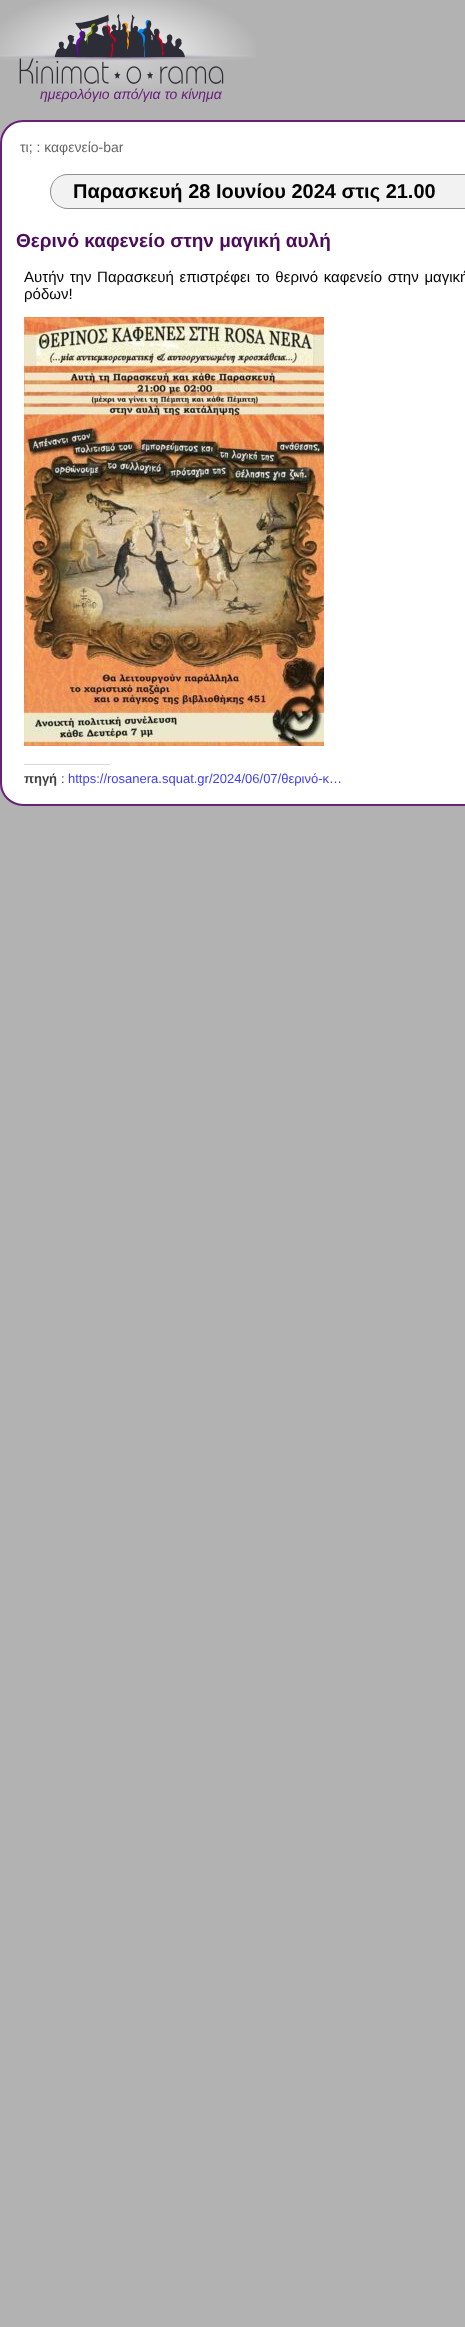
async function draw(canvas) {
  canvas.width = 465
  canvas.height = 2327
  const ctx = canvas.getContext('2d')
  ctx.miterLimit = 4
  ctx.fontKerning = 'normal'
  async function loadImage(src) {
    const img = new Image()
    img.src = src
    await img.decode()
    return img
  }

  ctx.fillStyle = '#b2b2b2'
  ctx.fillRect(0, 0, 465, 2327)
  ctx.drawImage(await loadImage('image0.png'), 0, 0, 256, 100)
  ctx.font = 'italic 14px Liberation Sans'
  ctx.fillStyle = '#672178'
  ctx.fillText('ημερολόγιο από/για το κίνημα', 40, 99)
  ctx.fillStyle = '#fff'
  ctx.beginPath()
  ctx.roundRect(1, 121, 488, 684, 22)
  ctx.fill()
  ctx.strokeStyle = '#672178'
  ctx.lineWidth = 2
  ctx.stroke()
  ctx.font = '14px Liberation Sans'
  ctx.fillStyle = '#666'
  ctx.fillText('τι; : καφενείο-bar', 20, 152)
  ctx.fillStyle = '#f2f2f2'
  ctx.beginPath()
  ctx.moveTo(67.5, 174)
  ctx.lineTo(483, 174)
  ctx.lineTo(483, 209)
  ctx.lineTo(67.5, 209)
  ctx.bezierCurveTo(58, 209, 50, 201, 50, 191.5)
  ctx.bezierCurveTo(50, 182, 58, 174, 67.5, 174)
  ctx.closePath()
  ctx.fill()
  ctx.fillStyle = '#8f8f8f'
  ctx.beginPath()
  ctx.moveTo(68, 174)
  ctx.lineTo(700, 174)
  ctx.lineTo(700, 209)
  ctx.lineTo(68, 209)
  ctx.bezierCurveTo(58, 209, 50, 201, 50, 192)
  ctx.bezierCurveTo(50, 182, 58, 174, 68, 174)
  ctx.closePath()
  ctx.moveTo(68, 175)
  ctx.lineTo(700, 175)
  ctx.lineTo(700, 208)
  ctx.lineTo(68, 208)
  ctx.bezierCurveTo(58, 208, 51, 201, 51, 192)
  ctx.bezierCurveTo(51, 182, 58, 175, 68, 175)
  ctx.closePath()
  ctx.fill('evenodd')
  ctx.font = 'bold 20px Liberation Sans'
  ctx.fillStyle = '#000'
  ctx.fillText('Παρασκευή 28 Ιουνίου 2024 στις 21.00', 73, 198)
  ctx.font = 'bold 19px Liberation Sans'
  ctx.fillStyle = '#4b0c5a'
  ctx.fillText('Θερινό καφενείο στην μαγική αυλή', 16, 247)
  ctx.wordSpacing = '1.5px'
  ctx.font = '15px Liberation Sans'
  ctx.fillStyle = '#000'
  ctx.fillText('Αυτήν την Παρασκευή επιστρέφει το θερινό καφενείο στην μαγική', 24, 282)
  ctx.wordSpacing = '0px'
  ctx.fillText('ρόδων!', 24, 299)
  ctx.drawImage(await loadImage('image1.png'), 24, 317, 300, 429)
  ctx.fillStyle = '#d9d9d9'
  ctx.fillRect(24, 764, 86, 1)
  ctx.font = 'bold 13px Liberation Sans'
  ctx.fillStyle = '#404040'
  ctx.fillText('πηγή', 24, 783)
  ctx.font = '13px Liberation Sans'
  ctx.fillText(':', 61, 783)
  ctx.fillStyle = '#4040f2'
  ctx.fillText('https://rosanera.squat.gr/2024/06/07/θερινό-κ…', 68, 783)
}

draw(document.querySelector('canvas'))
